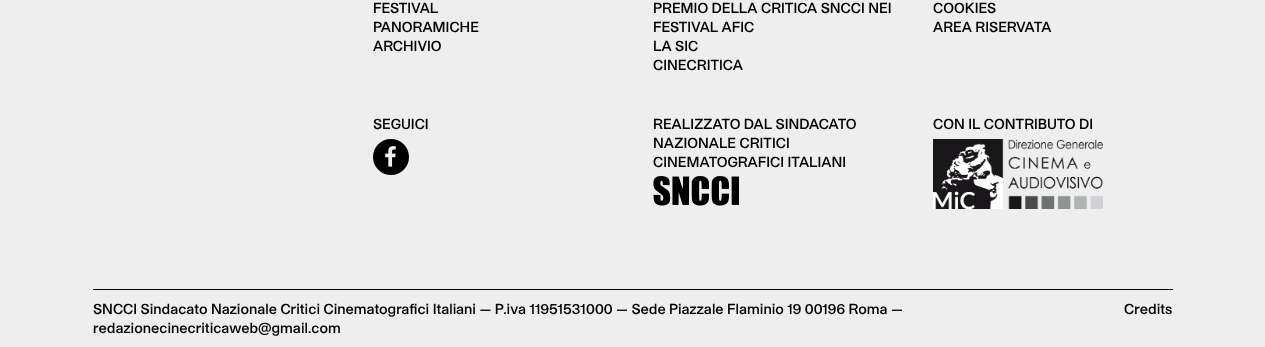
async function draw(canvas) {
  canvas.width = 1265
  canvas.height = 347
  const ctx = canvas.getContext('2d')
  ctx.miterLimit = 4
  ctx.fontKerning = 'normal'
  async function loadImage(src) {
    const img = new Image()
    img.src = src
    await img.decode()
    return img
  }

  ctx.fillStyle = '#eee'
  ctx.fillRect(0, 0, 1265, 347)
  ctx.font = '600 14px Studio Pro'
  ctx.fillStyle = '#000'
  ctx.fillText('FESTIVAL', 373, 13)
  ctx.fillText('PANORAMICHE', 373, 32)
  ctx.fillText('ARCHIVIO', 373, 51)
  ctx.fillText('PREMIO DELLA CRITICA SNCCI NEI', 653, 13)
  ctx.fillText('FESTIVAL AFIC', 653, 32)
  ctx.fillText('LA SIC', 653, 51)
  ctx.fillText('CINECRITICA', 653, 70)
  ctx.fillText('COOKIES', 933, 13)
  ctx.fillText('AREA RISERVATA', 933, 32)
  ctx.fillText('SEGUICI', 373, 129)
  ctx.beginPath()
  ctx.arc(391, 157, 18, 0, 2 * Math.PI)
  ctx.fill()
  ctx.drawImage(await loadImage('image0.png'), 385, 146, 11, 21)
  ctx.fillText('REALIZZATO DAL SINDACATO', 653, 129)
  ctx.fillText('NAZIONALE CRITICI', 653, 148)
  ctx.fillText('CINEMATOGRAFICI ITALIANI', 653, 167)
  ctx.drawImage(await loadImage('image1.png'), 653, 176, 86, 30)
  ctx.fillText('CON IL CONTRIBUTO DI', 933, 129)
  ctx.drawImage(await loadImage('image2.png'), 933, 139, 170, 70)
  ctx.fillRect(93, 289, 1080, 1)
  ctx.fillText('SNCCI Sindacato Nazionale Critici Cinematografici Italiani — P.iva 11951531000 — Sede Piazzale Flaminio 19 00196 Roma —', 93, 314)
  ctx.fillText('redazionecinecriticaweb@gmail.com', 93, 333)
  ctx.fillText('Credits', 1124, 314)
}

draw(document.querySelector('canvas'))
